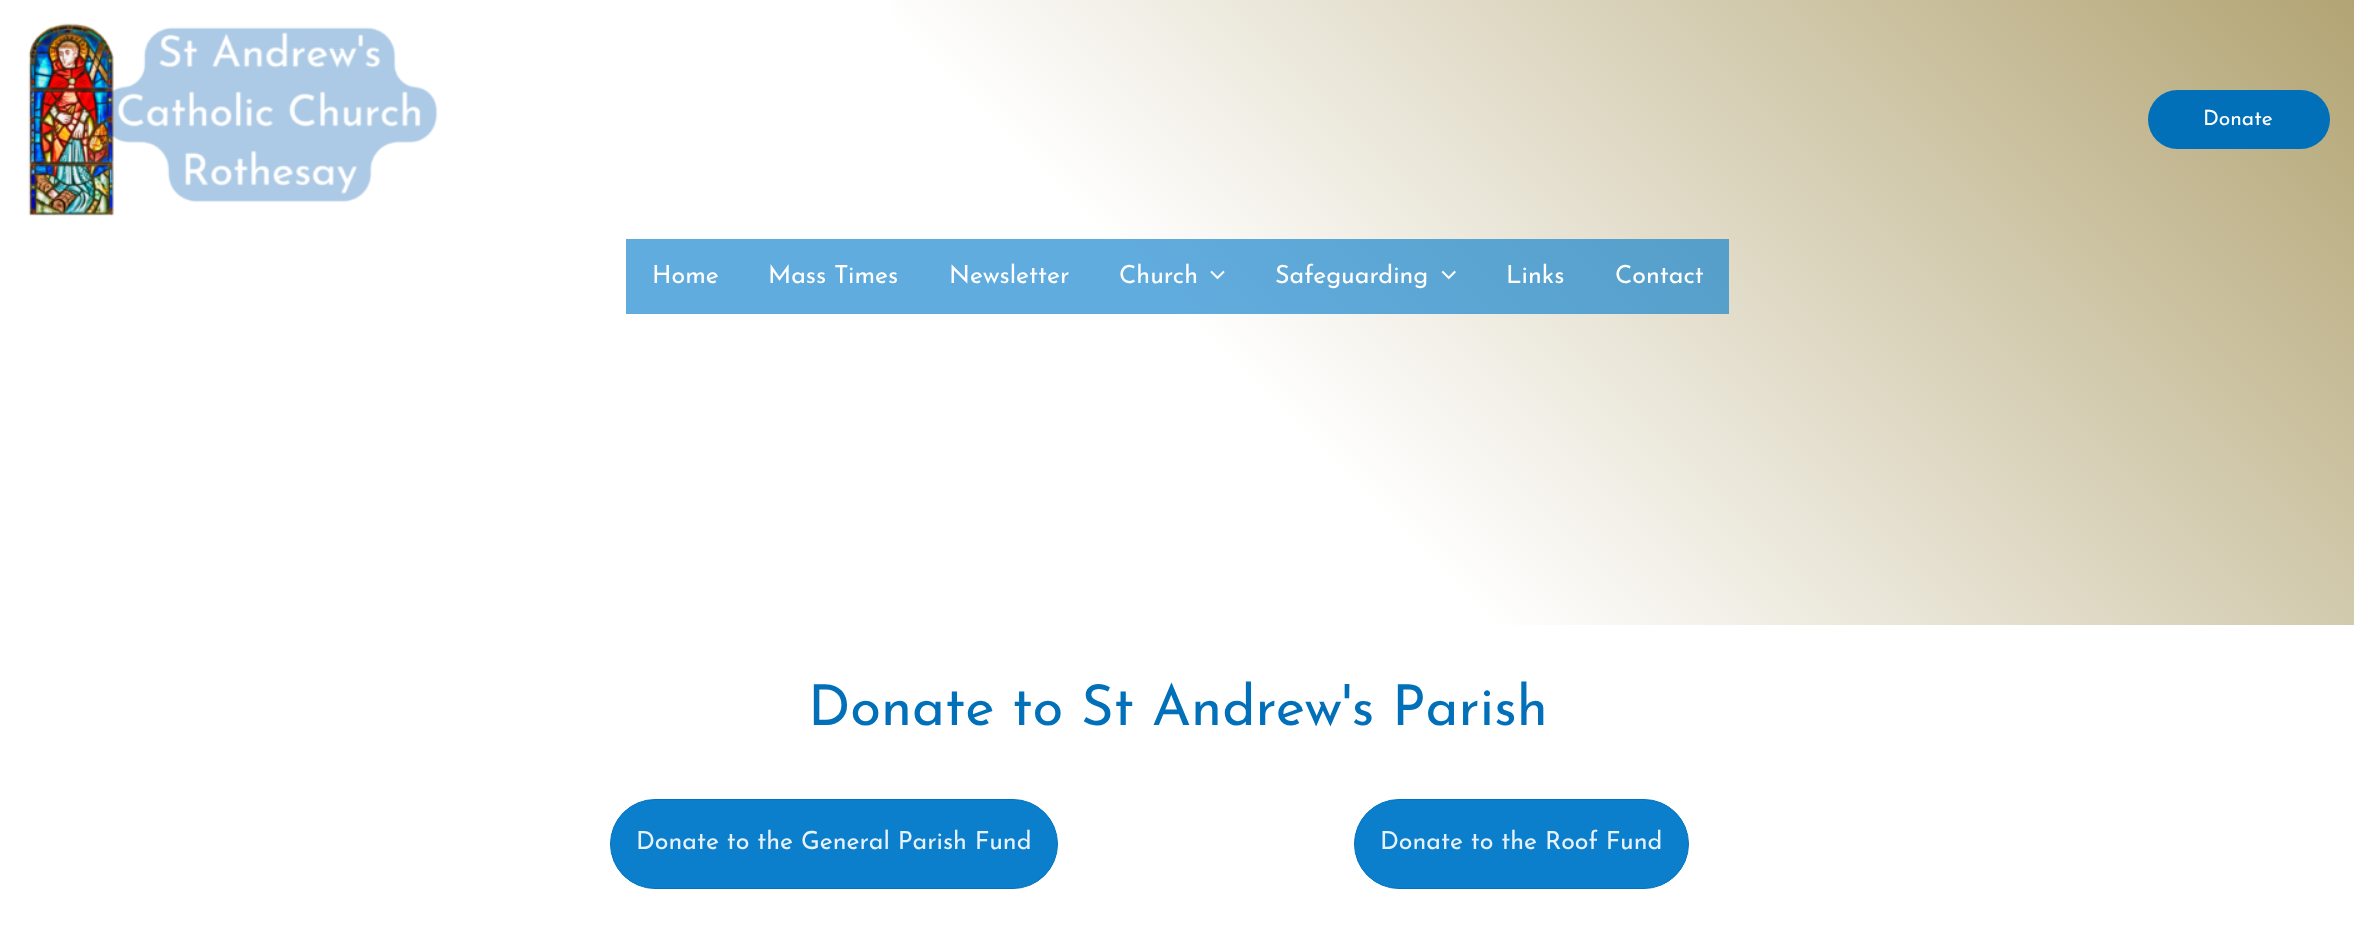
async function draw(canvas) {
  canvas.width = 2354
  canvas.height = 929
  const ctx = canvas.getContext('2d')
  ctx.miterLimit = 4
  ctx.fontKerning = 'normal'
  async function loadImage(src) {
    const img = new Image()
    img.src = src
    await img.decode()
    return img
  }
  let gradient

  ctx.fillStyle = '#fff'
  ctx.fillRect(0, 0, 2354, 929)
  ctx.drawImage(await loadImage('image0.png'), 28, 23, 410, 193)
  gradient = ctx.createLinearGradient(433, 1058, 1923, -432)
  gradient.addColorStop(0.5, '#fff')
  gradient.addColorStop(1, '#b2a473')
  ctx.fillStyle = gradient
  ctx.fillRect(892, 0, 1462, 625)
  ctx.fillStyle = '#0170b9'
  ctx.beginPath()
  ctx.roundRect(2148, 90, 182, 59, 29.5)
  ctx.fill()
  ctx.font = '100 21px Josefin Sans'
  ctx.fillStyle = '#fff'
  ctx.fillText('Donate', 2203, 125)
  gradient = ctx.createLinearGradient(433, 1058, 1923, -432)
  gradient.addColorStop(0.5, '#61acde')
  gradient.addColorStop(1, '#468cad')
  ctx.fillStyle = gradient
  ctx.fillRect(626, 239, 1103, 75)
  ctx.font = '100 25px Josefin Sans'
  ctx.fillStyle = '#fff'
  ctx.fillText('Home', 652, 283)
  ctx.fillText('Mass Times', 768, 283)
  ctx.fillText('Newsletter', 949, 283)
  ctx.fillText('Church', 1119, 283)
  ctx.drawImage(await loadImage('image1.png'), 1210, 270, 15, 10)
  ctx.fillText('Safeguarding', 1275, 283)
  ctx.drawImage(await loadImage('image2.png'), 1441, 270, 15, 10)
  ctx.fillText('Links', 1506, 283)
  ctx.fillText('Contact', 1615, 283)
  ctx.font = '100 56.25px Josefin Sans'
  ctx.fillStyle = '#0170b9'
  ctx.fillText('Donate to St Andrew\'s Parish', 808, 725)
  ctx.fillStyle = '#0c7fcc'
  ctx.beginPath()
  ctx.roundRect(610.5, 799.5, 447, 89, 44.5)
  ctx.fill()
  ctx.strokeStyle = '#0073c0'
  ctx.stroke()
  ctx.font = '100 25px Josefin Sans'
  ctx.fillStyle = '#e7f2fa'
  ctx.fillText('Donate to the General Parish Fund', 636, 849)
  ctx.fillStyle = '#0c7fcc'
  ctx.beginPath()
  ctx.roundRect(1354.5, 799.5, 334, 89, 44.5)
  ctx.fill()
  ctx.stroke()
  ctx.fillStyle = '#e7f2fa'
  ctx.fillText('Donate to the Roof Fund', 1380, 849)
}

draw(document.querySelector('canvas'))
